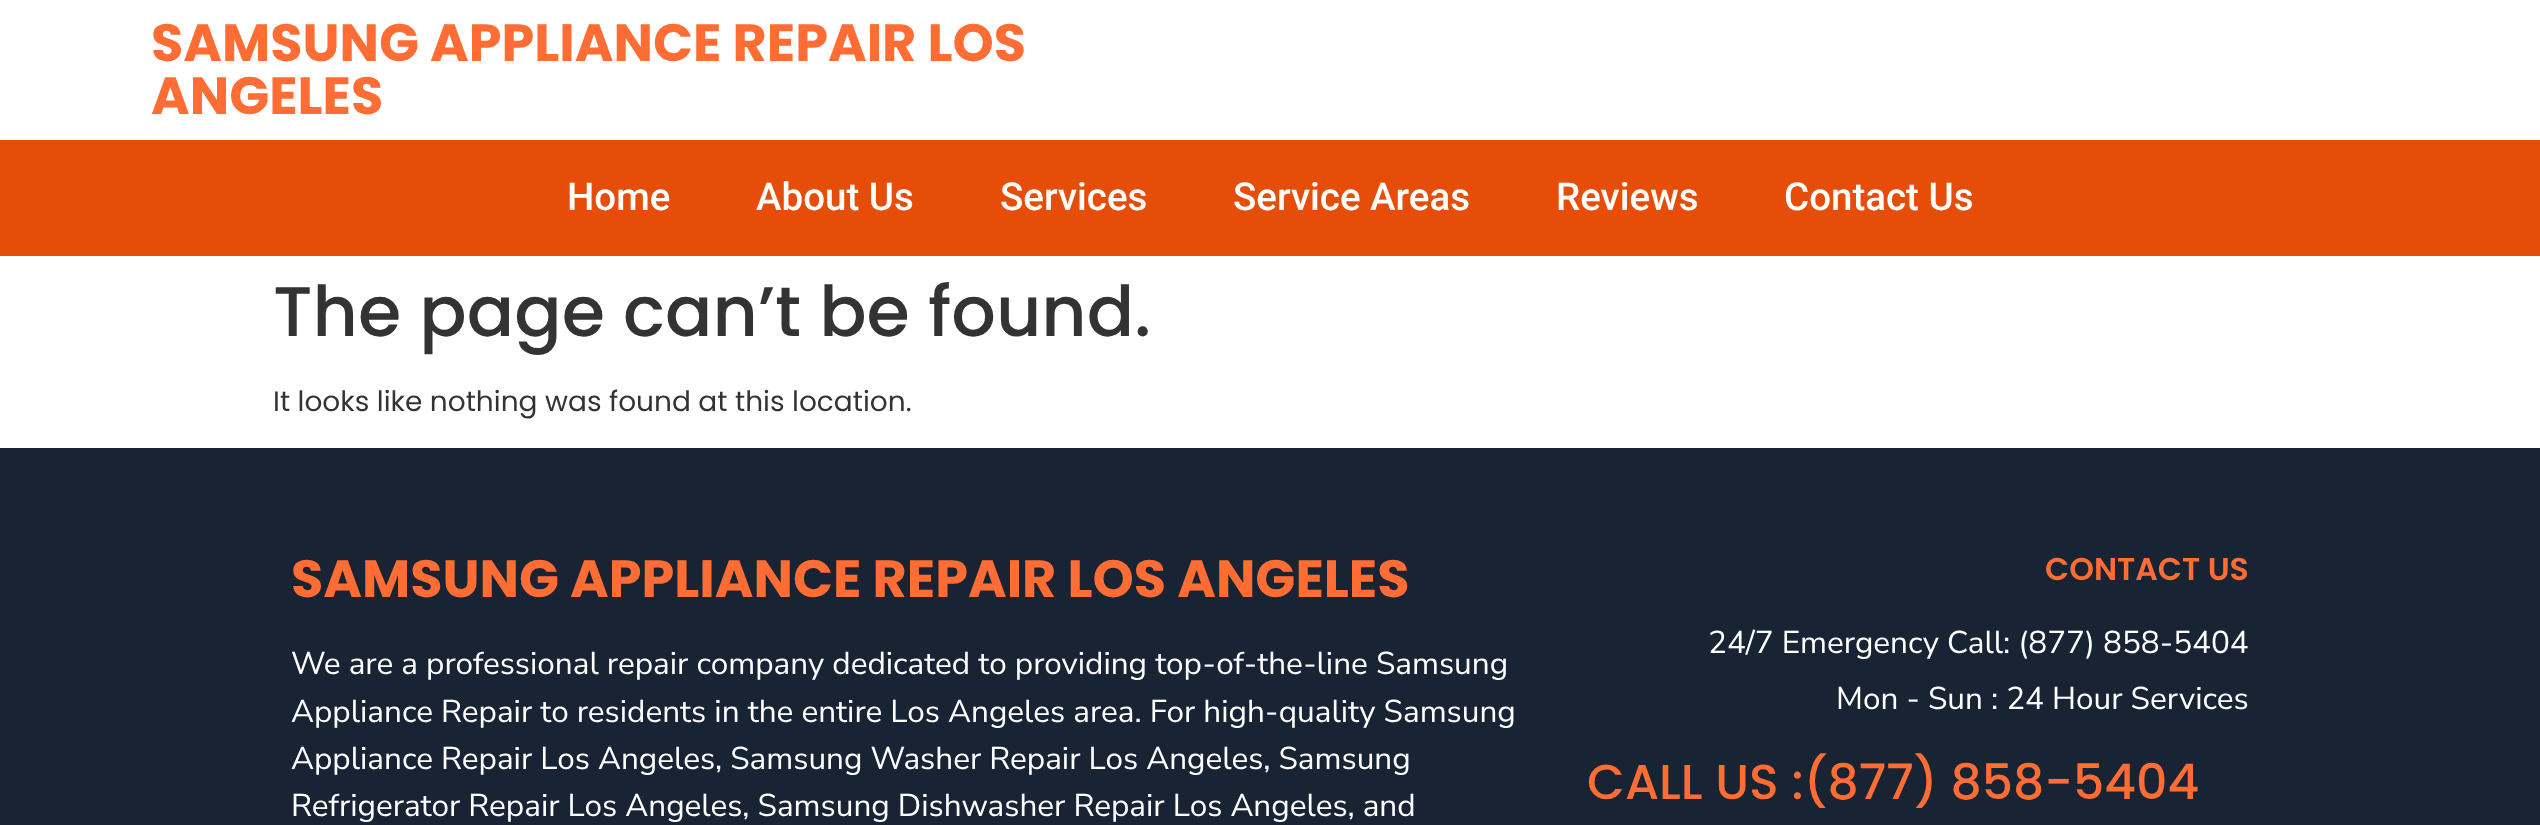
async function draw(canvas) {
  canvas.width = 2540
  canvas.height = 825
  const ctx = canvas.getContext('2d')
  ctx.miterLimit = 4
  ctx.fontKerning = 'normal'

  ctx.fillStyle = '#fff'
  ctx.fillRect(0, 0, 2540, 825)
  ctx.font = 'bold 52.5px Poppins'
  ctx.fillStyle = '#ff6d34'
  ctx.fillText('SAMSUNG APPLIANCE REPAIR LOS', 151, 61)
  ctx.fillText('ANGELES', 151, 114)
  ctx.fillStyle = '#e54d08'
  ctx.fillRect(0, 140, 2540, 116)
  ctx.font = '500 38.5px Roboto'
  ctx.fillStyle = '#fff'
  ctx.fillText('Home', 567, 210)
  ctx.fillText('About Us', 756, 210)
  ctx.fillText('Services', 1000, 210)
  ctx.fillText('Service Areas', 1233, 210)
  ctx.fillText('Reviews', 1556, 210)
  ctx.fillText('Contact Us', 1784, 210)
  ctx.font = '500 70px Poppins'
  ctx.fillStyle = '#333'
  ctx.fillText('The page can’t be found.', 273, 336)
  ctx.font = '28px Poppins'
  ctx.fillText('It looks like nothing was found at this location.', 273, 411)
  ctx.fillStyle = '#182433'
  ctx.fillRect(0, 448, 2540, 377)
  ctx.font = 'bold 52.5px Poppins'
  ctx.fillStyle = '#ff6d34'
  ctx.fillText('SAMSUNG APPLIANCE REPAIR LOS ANGELES', 291, 597)
  ctx.font = '31.5px Nunito Sans'
  ctx.fillStyle = '#fff'
  ctx.fillText('We are a professional repair company dedicated to providing top-of-the-line Samsung', 291, 674)
  ctx.fillText('Appliance Repair to residents in the entire Los Angeles area. For high-quality Samsung', 291, 722)
  ctx.fillText('Appliance Repair Los Angeles, Samsung Washer Repair Los Angeles, Samsung', 291, 769)
  ctx.fillText('Refrigerator Repair Los Angeles, Samsung Dishwasher Repair Los Angeles, and', 291, 816)
  ctx.font = '600 31.5px Poppins'
  ctx.fillStyle = '#ff6d34'
  ctx.fillText('CONTACT US', 2045, 580)
  ctx.font = '31.5px Nunito Sans'
  ctx.fillStyle = '#fff'
  ctx.fillText('24/7 Emergency Call: (877) 858-5404', 1708, 653)
  ctx.fillText('Mon - Sun : 24 Hour Services', 1836, 709)
  ctx.font = '500 49px Poppins'
  ctx.fillStyle = '#ff6d34'
  ctx.fillText('CALL US :(877) 858-5404', 1587, 799)
}

draw(document.querySelector('canvas'))
